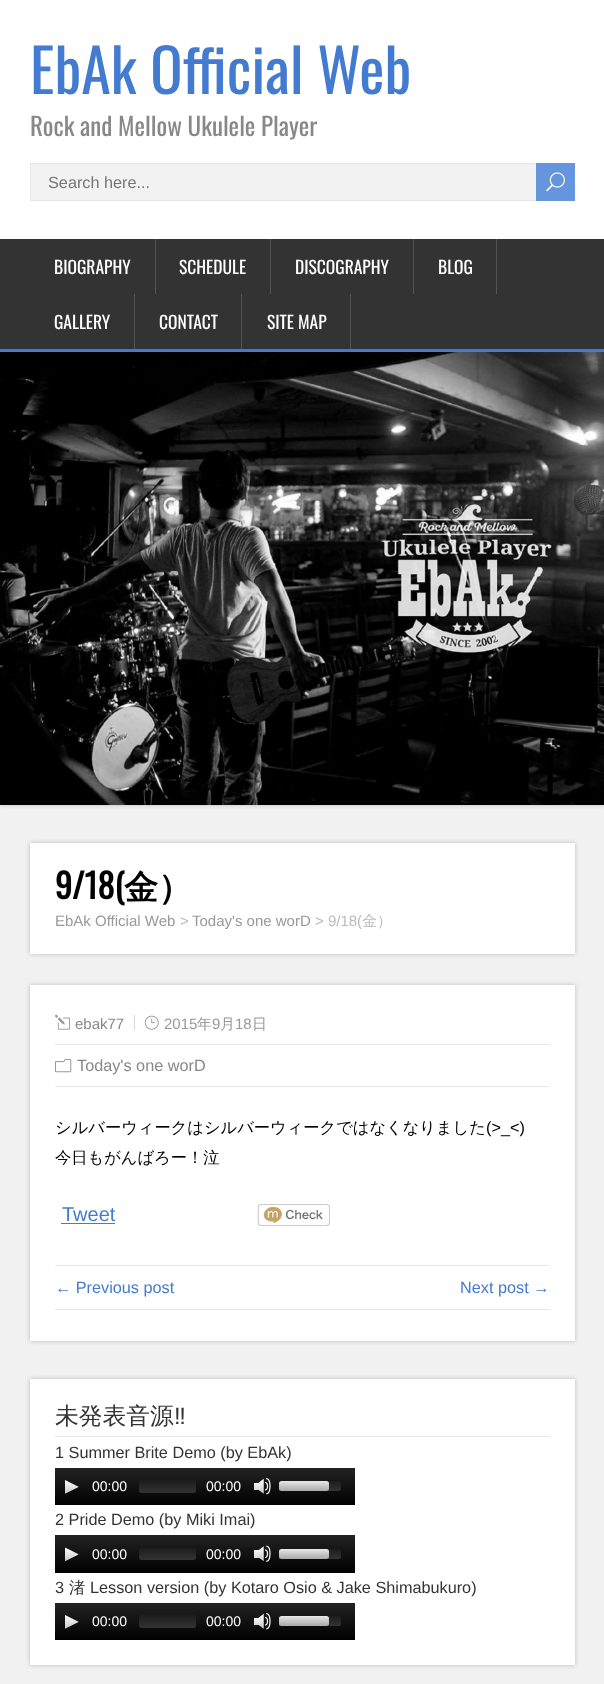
async function draw(canvas) {
  canvas.width = 604
  canvas.height = 1684
  const ctx = canvas.getContext('2d')
  ctx.miterLimit = 4
  ctx.fontKerning = 'normal'
  async function loadImage(src) {
    const img = new Image()
    img.src = src
    await img.decode()
    return img
  }
  let gradient

  ctx.fillStyle = '#f1f1f1'
  ctx.fillRect(0, 0, 604, 1684)
  ctx.fillStyle = '#bbb'
  ctx.filter = 'blur(2px)'
  ctx.beginPath()
  ctx.rect(0, 0, 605, 805)
  ctx.fill()
  ctx.filter = 'none'
  ctx.fillStyle = '#fff'
  ctx.fillRect(0, 0, 604, 239)
  ctx.font = '60px Oswald'
  ctx.fillStyle = '#437bd0'
  ctx.fillText('EbAk Official Web', 30, 94)
  ctx.font = '25px Oswald'
  ctx.fillStyle = '#888'
  ctx.fillText('Rock and Mellow Ukulele Player', 30, 136)
  ctx.fillStyle = '#f2f2f2'
  ctx.fillRect(31, 164, 505, 36)
  ctx.strokeStyle = '#e6e6e6'
  ctx.strokeRect(30.5, 163.5, 540, 37)
  ctx.font = '16.25px Liberation Sans'
  ctx.fillStyle = '#757575'
  ctx.fillText('Search here...', 48, 188)
  ctx.fillStyle = '#6596dd'
  ctx.fillRect(536, 163, 39, 38)
  ctx.drawImage(await loadImage('image0.png'), 546, 172, 19, 20)
  ctx.fillStyle = '#333'
  ctx.fillRect(0, 239, 604, 110)
  ctx.fillStyle = '#437bd0'
  ctx.fillRect(0, 349, 604, 3)
  ctx.fillStyle = '#535353'
  ctx.fillRect(155, 239, 1, 55)
  ctx.font = '17.5px Oswald'
  ctx.fillStyle = '#fff'
  ctx.fillText('BIOGRAPHY', 54, 274)
  ctx.fillStyle = '#535353'
  ctx.fillRect(270, 239, 1, 55)
  ctx.fillStyle = '#fff'
  ctx.fillText('SCHEDULE', 179, 274)
  ctx.fillStyle = '#535353'
  ctx.fillRect(413, 239, 1, 55)
  ctx.fillStyle = '#fff'
  ctx.fillText('DISCOGRAPHY', 295, 274)
  ctx.fillStyle = '#535353'
  ctx.fillRect(496, 239, 1, 55)
  ctx.fillStyle = '#fff'
  ctx.fillText('BLOG', 438, 274)
  ctx.fillStyle = '#535353'
  ctx.fillRect(134, 294, 1, 55)
  ctx.fillStyle = '#fff'
  ctx.fillText('GALLERY', 54, 329)
  ctx.fillStyle = '#535353'
  ctx.fillRect(241, 294, 1, 55)
  ctx.fillStyle = '#fff'
  ctx.fillText('CONTACT', 159, 329)
  ctx.fillStyle = '#535353'
  ctx.fillRect(350, 294, 1, 55)
  ctx.fillStyle = '#fff'
  ctx.fillText('SITE MAP', 267, 329)
  ctx.drawImage(await loadImage('image1.png'), 0, 352, 604, 453)
  ctx.fillStyle = '#bbb'
  ctx.filter = 'blur(2px)'
  ctx.beginPath()
  ctx.rect(30, 843, 545, 111)
  ctx.fill()
  ctx.filter = 'none'
  ctx.fillStyle = '#fff'
  ctx.fillRect(30, 843, 545, 111)
  ctx.font = 'bold 34px Oswald'
  ctx.fillStyle = '#000'
  ctx.fillText('9/18(', 55, 899)
  ctx.font = 'bold 34px WenQuanYi Zen Hei'
  ctx.fillText('金）', 124, 899)
  ctx.font = '15px Liberation Sans'
  ctx.fillStyle = '#999'
  ctx.fillText('EbAk Official Web', 55, 926)
  ctx.fillStyle = '#bbb'
  ctx.fillText('>', 180, 926)
  ctx.fillStyle = '#999'
  ctx.fillText('Today\'s one worD', 192, 926)
  ctx.fillStyle = '#bbb'
  ctx.fillText('> 9/18(', 315, 926)
  ctx.font = '500 15px WenQuanYi Zen Hei'
  ctx.fillText('金）', 362, 926)
  ctx.filter = 'blur(2px)'
  ctx.beginPath()
  ctx.rect(30, 985, 545, 356)
  ctx.fill()
  ctx.filter = 'none'
  ctx.fillStyle = '#fff'
  ctx.fillRect(30, 985, 545, 356)
  ctx.drawImage(await loadImage('image2.png'), 55, 1014, 15, 16)
  ctx.font = '15px Liberation Sans'
  ctx.fillStyle = '#888'
  ctx.fillText('ebak77', 75, 1029)
  ctx.drawImage(await loadImage('image3.png'), 144, 1015, 15, 15)
  ctx.fillStyle = '#999'
  ctx.fillText('2015', 164, 1029)
  ctx.fillStyle = '#dbdbdb'
  ctx.fillRect(134, 1015, 1, 15)
  ctx.font = '500 15px WenQuanYi Zen Hei'
  ctx.fillStyle = '#999'
  ctx.fillText('年', 197, 1029)
  ctx.font = '15px Liberation Sans'
  ctx.fillText('9', 212, 1029)
  ctx.font = '500 15px WenQuanYi Zen Hei'
  ctx.fillText('月', 220, 1029)
  ctx.font = '15px Liberation Sans'
  ctx.fillText('18', 235, 1029)
  ctx.font = '500 15px WenQuanYi Zen Hei'
  ctx.fillText('日', 252, 1029)
  ctx.fillStyle = '#e8e8e8'
  ctx.fillRect(55, 1044, 495, 1)
  ctx.fillRect(55, 1086, 495, 1)
  ctx.drawImage(await loadImage('image4.png'), 55, 1059, 17, 14)
  ctx.font = '16.25px Liberation Sans'
  ctx.fillStyle = '#888'
  ctx.fillText('Today\'s one worD', 77, 1071)
  ctx.font = '500 16.25px WenQuanYi Zen Hei'
  ctx.fillStyle = '#000'
  ctx.fillText('シルバーウィークはシルバーウィークではなくなりました', 55, 1133)
  ctx.font = '16.25px Liberation Sans'
  ctx.fillText('(>_<)', 486, 1133)
  ctx.font = '500 16.25px WenQuanYi Zen Hei'
  ctx.fillText('今日もがんばろー！泣', 55, 1163)
  ctx.font = '20px Liberation Sans'
  ctx.fillStyle = '#437bd0'
  ctx.fillText('Tweet', 62, 1221)
  ctx.fillRect(61, 1223, 54, 1)
  ctx.drawImage(await loadImage('image5.png'), 257, 1204, 73, 22)
  ctx.fillStyle = '#e8e8e8'
  ctx.fillRect(55, 1265, 495, 1)
  ctx.fillRect(55, 1309, 495, 1)
  ctx.font = '16.25px Liberation Sans'
  ctx.fillStyle = '#437bd0'
  ctx.fillText('← Previous post', 55, 1293)
  ctx.fillText('Next post →', 460, 1293)
  ctx.fillStyle = '#bbb'
  ctx.filter = 'blur(2px)'
  ctx.beginPath()
  ctx.rect(30, 1379, 545, 286)
  ctx.fill()
  ctx.filter = 'none'
  ctx.fillStyle = '#fff'
  ctx.fillRect(30, 1379, 545, 286)
  ctx.fillStyle = '#e8e8e8'
  ctx.fillRect(55, 1436, 495, 1)
  ctx.font = '500 23.75px WenQuanYi Zen Hei'
  ctx.fillStyle = '#333'
  ctx.fillText('未発表音源', 55, 1424)
  ctx.font = '23.75px Liberation Sans'
  ctx.fillText('‼︎', 174, 1424)
  ctx.font = '16.25px Liberation Sans'
  ctx.fillText('1 Summer Brite Demo (by EbAk)', 55, 1458)
  gradient = ctx.createLinearGradient(205, 1468, 205, 1505)
  gradient.addColorStop(0, '#232323')
  gradient.addColorStop(1, '#000')
  ctx.fillStyle = gradient
  ctx.fillRect(55, 1468, 300, 37)
  ctx.drawImage(await loadImage('image6.png'), 65, 1480, 14, 14)
  ctx.font = '14px Liberation Sans'
  ctx.fillStyle = '#fff'
  ctx.fillText('00:00', 92, 1491)
  gradient = ctx.createLinearGradient(168, 1480, 168, 1493)
  gradient.addColorStop(0, '#1e1e1ecc')
  gradient.addColorStop(1, '#3c3c3ccc')
  ctx.fillStyle = gradient
  ctx.beginPath()
  ctx.roundRect(139, 1480, 57, 13, 2.5)
  ctx.fill()
  ctx.fillStyle = '#fff'
  ctx.fillText('00:00', 206, 1491)
  ctx.drawImage(await loadImage('image7.png'), 254, 1478, 17, 17)
  gradient = ctx.createLinearGradient(310, 1481, 310, 1491)
  gradient.addColorStop(0, '#1e1e1ecc')
  gradient.addColorStop(1, '#3c3c3ccc')
  ctx.fillStyle = gradient
  ctx.beginPath()
  ctx.roundRect(279, 1481, 62, 10, 2.5)
  ctx.fill()
  gradient = ctx.createLinearGradient(304, 1481, 304, 1491)
  gradient.addColorStop(0, '#ffffffe6')
  gradient.addColorStop(1, '#c8c8c8cc')
  ctx.fillStyle = gradient
  ctx.beginPath()
  ctx.roundRect(279, 1481, 50, 10, 2.5)
  ctx.fill()
  ctx.font = '16.25px Liberation Sans'
  ctx.fillStyle = '#333'
  ctx.fillText('2 Pride Demo (by Miki Imai)', 55, 1525)
  gradient = ctx.createLinearGradient(205, 1535, 205, 1573)
  gradient.addColorStop(0, '#232323')
  gradient.addColorStop(1, '#000')
  ctx.fillStyle = gradient
  ctx.fillRect(55, 1535, 300, 38)
  ctx.drawImage(await loadImage('image8.png'), 65, 1547, 14, 15)
  ctx.font = '14px Liberation Sans'
  ctx.fillStyle = '#fff'
  ctx.fillText('00:00', 92, 1559)
  gradient = ctx.createLinearGradient(168, 1548, 168, 1560)
  gradient.addColorStop(0, '#1e1e1ecc')
  gradient.addColorStop(1, '#3c3c3ccc')
  ctx.fillStyle = gradient
  ctx.beginPath()
  ctx.roundRect(139, 1548, 57, 12, 2.5)
  ctx.fill()
  ctx.fillStyle = '#fff'
  ctx.fillText('00:00', 206, 1559)
  ctx.drawImage(await loadImage('image9.png'), 254, 1545, 17, 17)
  gradient = ctx.createLinearGradient(310, 1549, 310, 1559)
  gradient.addColorStop(0, '#1e1e1ecc')
  gradient.addColorStop(1, '#3c3c3ccc')
  ctx.fillStyle = gradient
  ctx.beginPath()
  ctx.roundRect(279, 1549, 62, 10, 2.5)
  ctx.fill()
  gradient = ctx.createLinearGradient(304, 1549, 304, 1559)
  gradient.addColorStop(0, '#ffffffe6')
  gradient.addColorStop(1, '#c8c8c8cc')
  ctx.fillStyle = gradient
  ctx.beginPath()
  ctx.roundRect(279, 1549, 50, 10, 2.5)
  ctx.fill()
  ctx.font = '16.25px Liberation Sans'
  ctx.fillStyle = '#333'
  ctx.fillText('3', 55, 1593)
  ctx.font = '500 16.25px WenQuanYi Zen Hei'
  ctx.fillText('渚', 69, 1593)
  ctx.font = '16.25px Liberation Sans'
  ctx.fillText('Lesson version (by Kotaro Osio & Jake Shimabukuro)', 90, 1593)
  gradient = ctx.createLinearGradient(205, 1603, 205, 1640)
  gradient.addColorStop(0, '#232323')
  gradient.addColorStop(1, '#000')
  ctx.fillStyle = gradient
  ctx.fillRect(55, 1603, 300, 37)
  ctx.drawImage(await loadImage('image6.png'), 65, 1615, 14, 14)
  ctx.font = '14px Liberation Sans'
  ctx.fillStyle = '#fff'
  ctx.fillText('00:00', 92, 1626)
  gradient = ctx.createLinearGradient(168, 1615, 168, 1628)
  gradient.addColorStop(0, '#1e1e1ecc')
  gradient.addColorStop(1, '#3c3c3ccc')
  ctx.fillStyle = gradient
  ctx.beginPath()
  ctx.roundRect(139, 1615, 57, 13, 2.5)
  ctx.fill()
  ctx.fillStyle = '#fff'
  ctx.fillText('00:00', 206, 1626)
  ctx.drawImage(await loadImage('image7.png'), 254, 1613, 17, 17)
  gradient = ctx.createLinearGradient(310, 1616, 310, 1626)
  gradient.addColorStop(0, '#1e1e1ecc')
  gradient.addColorStop(1, '#3c3c3ccc')
  ctx.fillStyle = gradient
  ctx.beginPath()
  ctx.roundRect(279, 1616, 62, 10, 2.5)
  ctx.fill()
  gradient = ctx.createLinearGradient(304, 1616, 304, 1626)
  gradient.addColorStop(0, '#ffffffe6')
  gradient.addColorStop(1, '#c8c8c8cc')
  ctx.fillStyle = gradient
  ctx.beginPath()
  ctx.roundRect(279, 1616, 50, 10, 2.5)
  ctx.fill()
}

draw(document.querySelector('canvas'))
